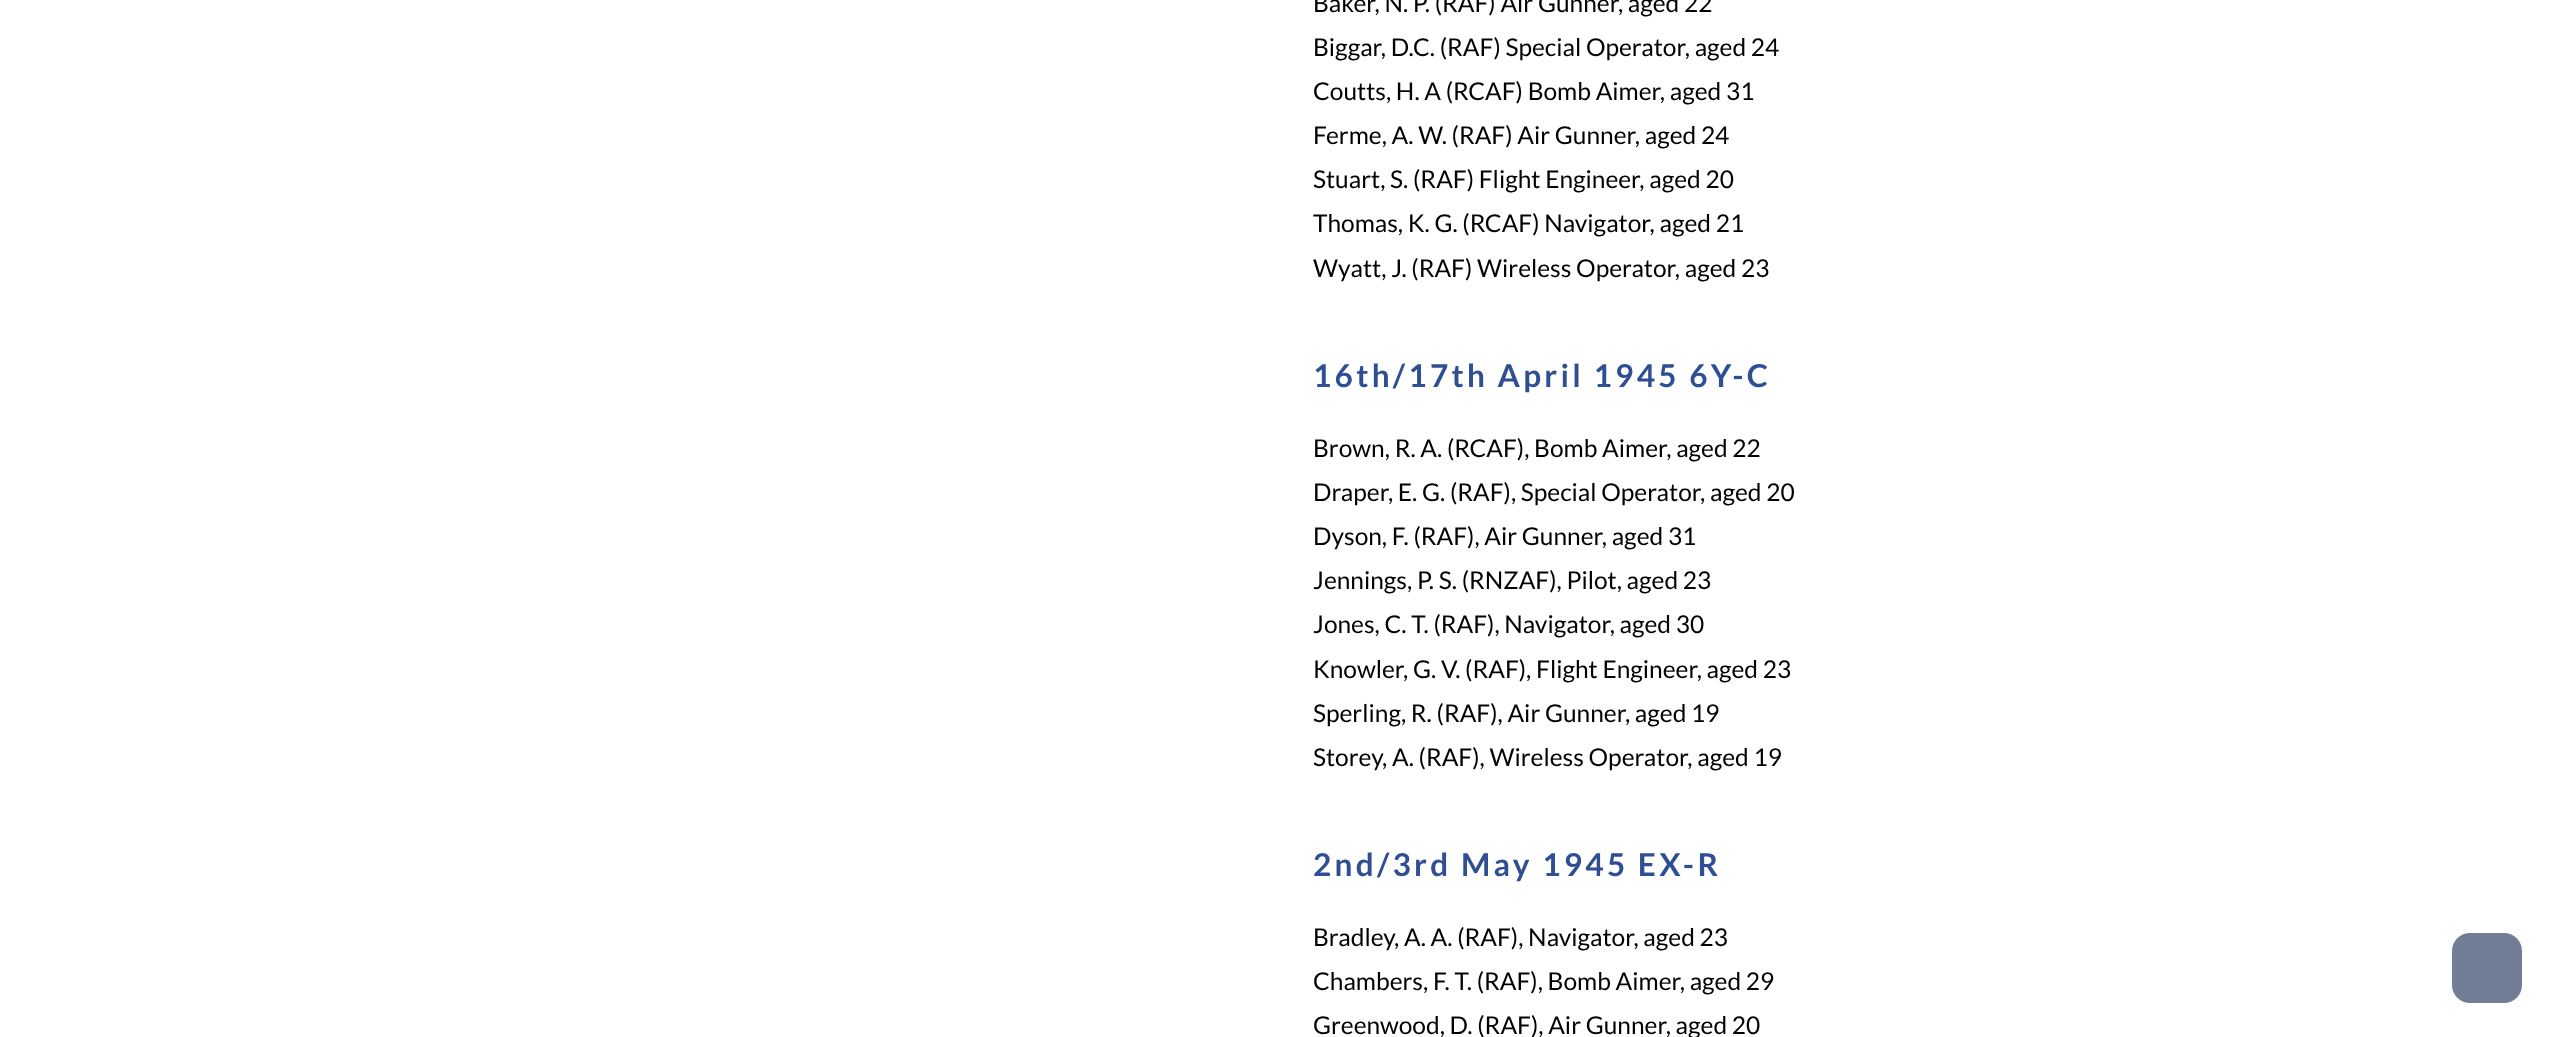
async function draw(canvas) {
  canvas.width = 2556
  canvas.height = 1037
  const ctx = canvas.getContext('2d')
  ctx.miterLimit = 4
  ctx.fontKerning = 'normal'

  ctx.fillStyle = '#fff'
  ctx.fillRect(0, 0, 2556, 1037)
  ctx.font = '24.5px Lato'
  ctx.fillStyle = '#000'
  ctx.fillText('Baker, N. P. (RAF) Air Gunner, aged 22', 1313, 12)
  ctx.fillText('Biggar, D.C. (RAF) Special Operator, aged 24', 1313, 56)
  ctx.fillText('Coutts, H. A (RCAF) Bomb Aimer, aged 31', 1313, 100)
  ctx.fillText('Ferme, A. W. (RAF) Air Gunner, aged 24', 1313, 144)
  ctx.fillText('Stuart, S. (RAF) Flight Engineer, aged 20', 1313, 188)
  ctx.fillText('Thomas, K. G. (RCAF) Navigator, aged 21', 1313, 232)
  ctx.fillText('Wyatt, J. (RAF) Wireless Operator, aged 23', 1313, 277)
  ctx.letterSpacing = '3.3px'
  ctx.font = 'bold 31.5px Lato'
  ctx.fillStyle = '#2e4f94'
  ctx.fillText('16th/17th April 1945 6Y-C', 1313, 387)
  ctx.letterSpacing = '0px'
  ctx.font = '24.5px Lato'
  ctx.fillStyle = '#000'
  ctx.fillText('Brown, R. A. (RCAF), Bomb Aimer, aged 22', 1313, 457)
  ctx.fillText('Draper, E. G. (RAF), Special Operator, aged 20', 1313, 501)
  ctx.fillText('Dyson, F. (RAF), Air Gunner, aged 31', 1313, 545)
  ctx.fillText('Jennings, P. S. (RNZAF), Pilot, aged 23', 1313, 589)
  ctx.fillText('Jones, C. T. (RAF), Navigator, aged 30', 1313, 633)
  ctx.fillText('Knowler, G. V. (RAF), Flight Engineer, aged 23', 1313, 678)
  ctx.fillText('Sperling, R. (RAF), Air Gunner, aged 19', 1313, 722)
  ctx.fillText('Storey, A. (RAF), Wireless Operator, aged 19', 1313, 766)
  ctx.letterSpacing = '3.3px'
  ctx.font = 'bold 31.5px Lato'
  ctx.fillStyle = '#2e4f94'
  ctx.fillText('2nd/3rd May 1945 EX-R', 1313, 876)
  ctx.letterSpacing = '0px'
  ctx.font = '24.5px Lato'
  ctx.fillStyle = '#000'
  ctx.fillText('Bradley, A. A. (RAF), Navigator, aged 23', 1313, 946)
  ctx.fillText('Chambers, F. T. (RAF), Bomb Aimer, aged 29', 1313, 990)
  ctx.fillText('Greenwood, D. (RAF), Air Gunner, aged 20', 1313, 1034)
  ctx.fillStyle = '#727d96'
  ctx.beginPath()
  ctx.roundRect(2452, 933, 70, 70, 18)
  ctx.fill()
}

draw(document.querySelector('canvas'))
